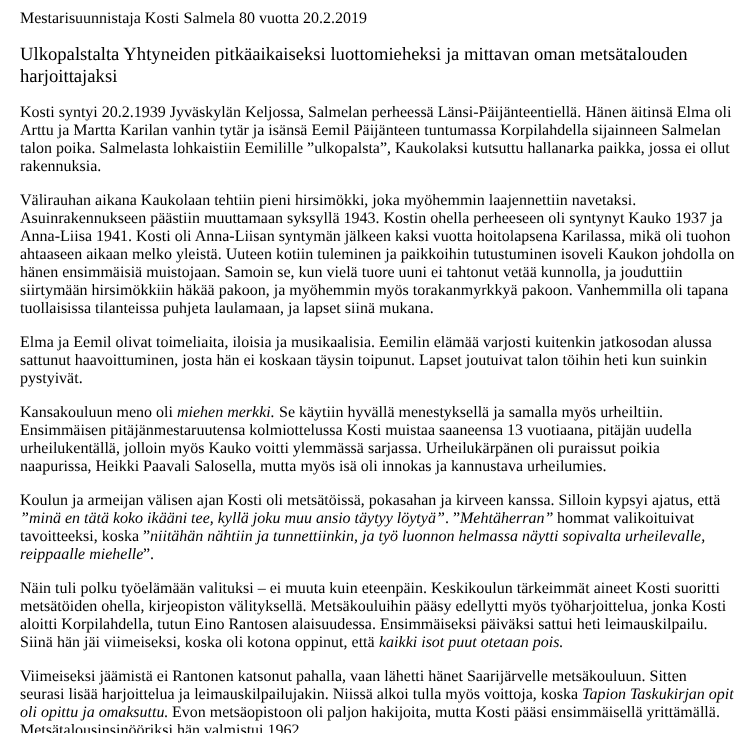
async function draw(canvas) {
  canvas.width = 755
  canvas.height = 733
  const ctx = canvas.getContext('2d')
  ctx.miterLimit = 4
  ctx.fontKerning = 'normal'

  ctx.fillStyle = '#fff'
  ctx.fillRect(0, 0, 755, 733)
  ctx.font = '16px Liberation Serif'
  ctx.fillStyle = '#000'
  ctx.fillText('Mestarisuunnistaja Kosti Salmela 80 vuotta 20.2.2019', 20, 23)
  ctx.font = '18.65px Liberation Serif'
  ctx.fillText('Ulkopalstalta Yhtyneiden pitkäaikaiseksi luottomieheksi ja mittavan oman metsätalouden', 20, 60)
  ctx.fillText('harjoittajaksi', 20, 82)
  ctx.font = '16px Liberation Serif'
  ctx.fillText('Kosti syntyi 20.2.1939 Jyväskylän Keljossa, Salmelan perheessä Länsi-Päijänteentiellä. Hänen äitinsä Elma oli', 20, 117)
  ctx.fillText('Arttu ja Martta Karilan vanhin tytär ja isänsä Eemil Päijänteen tuntumassa Korpilahdella sijainneen Salmelan', 20, 135)
  ctx.fillText('talon poika. Salmelasta lohkaistiin Eemilille ”ulkopalsta”, Kaukolaksi kutsuttu hallanarka paikka, jossa ei ollut', 20, 153)
  ctx.fillText('rakennuksia.', 20, 171)
  ctx.fillText('Välirauhan aikana Kaukolaan tehtiin pieni hirsimökki, joka myöhemmin laajennettiin navetaksi.', 20, 205)
  ctx.fillText('Asuinrakennukseen päästiin muuttamaan syksyllä 1943. Kostin ohella perheeseen oli syntynyt Kauko 1937 ja', 20, 223)
  ctx.fillText('Anna-Liisa 1941. Kosti oli Anna-Liisan syntymän jälkeen kaksi vuotta hoitolapsena Karilassa, mikä oli tuohon', 20, 241)
  ctx.fillText('ahtaaseen aikaan melko yleistä. Uuteen kotiin tuleminen ja paikkoihin tutustuminen isoveli Kaukon johdolla on', 20, 259)
  ctx.fillText('hänen ensimmäisiä muistojaan. Samoin se, kun vielä tuore uuni ei tahtonut vetää kunnolla, ja jouduttiin', 20, 277)
  ctx.fillText('siirtymään hirsimökkiin häkää pakoon, ja myöhemmin myös torakanmyrkkyä pakoon. Vanhemmilla oli tapana', 20, 295)
  ctx.fillText('tuollaisissa tilanteissa puhjeta laulamaan, ja lapset siinä mukana.', 20, 313)
  ctx.fillText('Elma ja Eemil olivat toimeliaita, iloisia ja musikaalisia. Eemilin elämää varjosti kuitenkin jatkosodan alussa', 20, 347)
  ctx.fillText('sattunut haavoittuminen, josta hän ei koskaan täysin toipunut. Lapset joutuivat talon töihin heti kun suinkin', 20, 365)
  ctx.fillText('pystyivät.', 20, 383)
  ctx.fillText('Kansakouluun meno oli', 20, 417)
  ctx.font = 'italic 16px Liberation Serif'
  ctx.fillText('miehen merkki.', 177, 417)
  ctx.font = '16px Liberation Serif'
  ctx.fillText('Se käytiin hyvällä menestyksellä ja samalla myös urheiltiin.', 279, 417)
  ctx.fillText('Ensimmäisen pitäjänmestaruutensa kolmiottelussa Kosti muistaa saaneensa 13 vuotiaana, pitäjän uudella', 20, 435)
  ctx.fillText('urheilukentällä, jolloin myös Kauko voitti ylemmässä sarjassa. Urheilukärpänen oli puraissut poikia', 20, 453)
  ctx.fillText('naapurissa, Heikki Paavali Salosella, mutta myös isä oli innokas ja kannustava urheilumies.', 20, 471)
  ctx.fillText('Koulun ja armeijan välisen ajan Kosti oli metsätöissä, pokasahan ja kirveen kanssa. Silloin kypsyi ajatus, että', 20, 505)
  ctx.font = 'italic 16px Liberation Serif'
  ctx.fillText('”minä en tätä koko ikääni tee, kyllä joku muu ansio täytyy löytyä”', 20, 523)
  ctx.font = '16px Liberation Serif'
  ctx.fillText('. ”', 445, 523)
  ctx.font = 'italic 16px Liberation Serif'
  ctx.fillText('Mehtäherran”', 460, 523)
  ctx.font = '16px Liberation Serif'
  ctx.fillText('hommat valikoituivat', 557, 523)
  ctx.fillText('tavoitteeksi, koska ”', 20, 541)
  ctx.font = 'italic 16px Liberation Serif'
  ctx.fillText('niitähän nähtiin ja tunnettiinkin, ja työ luonnon helmassa näytti sopivalta urheilevalle,', 150, 541)
  ctx.fillText('reippaalle miehelle', 20, 559)
  ctx.font = '16px Liberation Serif'
  ctx.fillText('”.', 143, 559)
  ctx.fillText('Näin tuli polku työelämään valituksi – ei muuta kuin eteenpäin. Keskikoulun tärkeimmät aineet Kosti suoritti', 20, 593)
  ctx.fillText('metsätöiden ohella, kirjeopiston välityksellä. Metsäkouluihin pääsy edellytti myös työharjoittelua, jonka Kosti', 20, 611)
  ctx.fillText('aloitti Korpilahdella, tutun Eino Rantosen alaisuudessa. Ensimmäiseksi päiväksi sattui heti leimauskilpailu.', 20, 629)
  ctx.fillText('Siinä hän jäi viimeiseksi, koska oli kotona oppinut, että', 20, 647)
  ctx.font = 'italic 16px Liberation Serif'
  ctx.fillText('kaikki isot puut otetaan pois', 379, 647)
  ctx.font = '16px Liberation Serif'
  ctx.fillText('.', 559, 647)
  ctx.fillText('Viimeiseksi jäämistä ei Rantonen katsonut pahalla, vaan lähetti hänet Saarijärvelle metsäkouluun. Sitten', 20, 681)
  ctx.fillText('seurasi lisää harjoittelua ja leimauskilpailujakin. Niissä alkoi tulla myös voittoja, koska', 20, 699)
  ctx.font = 'italic 16px Liberation Serif'
  ctx.fillText('Tapion Taskukirjan opit', 582, 699)
  ctx.fillText('oli opittu ja omaksuttu', 20, 717)
  ctx.font = '16px Liberation Serif'
  ctx.fillText('. Evon metsäopistoon oli paljon hakijoita, mutta Kosti pääsi ensimmäisellä yrittämällä.', 164, 717)
  ctx.fillText('Metsätalousinsinööriksi hän valmistui 1962', 20, 735)
}

draw(document.querySelector('canvas'))
